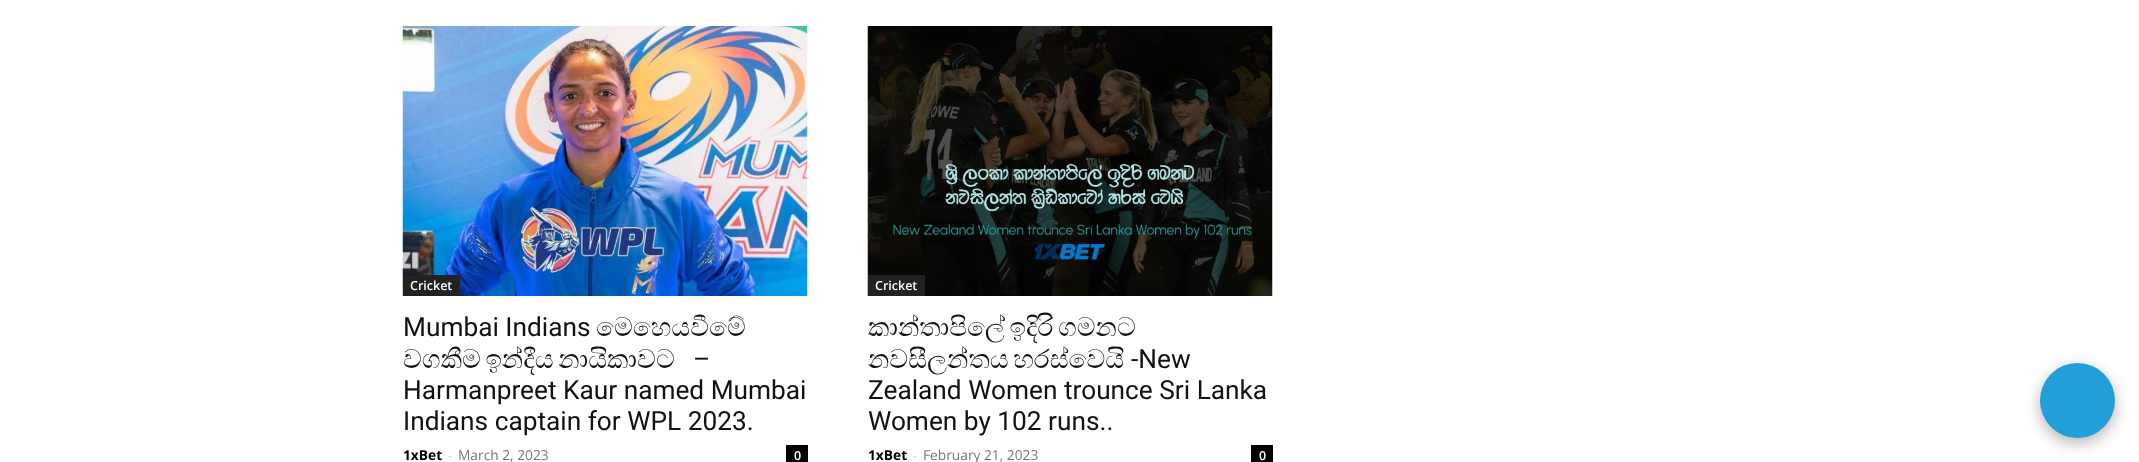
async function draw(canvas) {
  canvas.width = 2139
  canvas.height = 462
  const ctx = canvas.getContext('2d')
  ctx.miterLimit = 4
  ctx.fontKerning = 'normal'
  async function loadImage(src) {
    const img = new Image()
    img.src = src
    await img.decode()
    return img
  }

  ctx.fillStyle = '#fff'
  ctx.fillRect(0, 0, 2139, 462)
  ctx.drawImage(await loadImage('image0.png'), 402, 26, 406, 270)
  ctx.fillStyle = '#222'
  ctx.fillRect(403, 275, 57, 21)
  ctx.font = '600 12.5px Open Sans'
  ctx.fillStyle = '#fff'
  ctx.fillText('Cricket', 410, 290)
  ctx.font = '26.25px Roboto'
  ctx.fillStyle = '#111'
  ctx.fillText('Mumbai Indians', 403, 336)
  ctx.font = '26.25px FreeSerif'
  ctx.fillText('මෙහෙයවීමේ', 596, 336)
  ctx.wordSpacing = '-2px'
  ctx.fillText('වගකීම ඉන්දීය නායිකාවට', 403, 368)
  ctx.wordSpacing = '0px'
  ctx.font = '26.25px Roboto'
  ctx.fillText('–', 693, 368)
  ctx.fillText('Harmanpreet Kaur named Mumbai', 403, 399)
  ctx.fillText('Indians captain for WPL 2023.', 403, 430)
  ctx.font = 'bold 13.75px Open Sans'
  ctx.fillStyle = '#000'
  ctx.fillText('1xBet', 403, 460)
  ctx.font = '13.75px Open Sans'
  ctx.fillStyle = '#ccc'
  ctx.fillText('-', 448, 460)
  ctx.fillStyle = '#767676'
  ctx.fillText('March 2, 2023', 458, 460)
  ctx.fillStyle = '#000'
  ctx.fillRect(786, 445, 22, 17)
  ctx.font = '600 12.5px Open Sans'
  ctx.fillStyle = '#fff'
  ctx.fillText('0', 794, 460)
  ctx.drawImage(await loadImage('image1.png'), 867, 26, 406, 270)
  ctx.fillStyle = '#222'
  ctx.fillRect(868, 275, 57, 21)
  ctx.fillStyle = '#fff'
  ctx.fillText('Cricket', 875, 290)
  ctx.wordSpacing = '-2px'
  ctx.font = '26.25px FreeSerif'
  ctx.fillStyle = '#111'
  ctx.fillText('කාන්තාපිලේ ඉදිරි ගමනට', 868, 336)
  ctx.fillText('නවසීලන්තය හරස්වෙයි', 868, 368)
  ctx.wordSpacing = '0px'
  ctx.font = '26.25px Roboto'
  ctx.fillText('-New', 1131, 368)
  ctx.fillText('Zealand Women trounce Sri Lanka', 868, 399)
  ctx.fillText('Women by 102 runs..', 868, 430)
  ctx.font = 'bold 13.75px Open Sans'
  ctx.fillStyle = '#000'
  ctx.fillText('1xBet', 868, 460)
  ctx.font = '13.75px Open Sans'
  ctx.fillStyle = '#ccc'
  ctx.fillText('-', 913, 460)
  ctx.fillStyle = '#767676'
  ctx.fillText('February 21, 2023', 923, 460)
  ctx.fillStyle = '#000'
  ctx.fillRect(1251, 445, 22, 17)
  ctx.font = '600 12.5px Open Sans'
  ctx.fillStyle = '#fff'
  ctx.fillText('0', 1259, 460)
  ctx.fillStyle = '#0000004d'
  ctx.filter = 'blur(7.5px)'
  ctx.beginPath()
  ctx.roundRect(2040, 368, 75, 75, 37.5)
  ctx.fill()
  ctx.filter = 'none'
  ctx.fillStyle = '#229ed9'
  ctx.beginPath()
  ctx.arc(2077.5, 400.5, 37.5, 0, 2 * Math.PI)
  ctx.fill()
}

draw(document.querySelector('canvas'))
